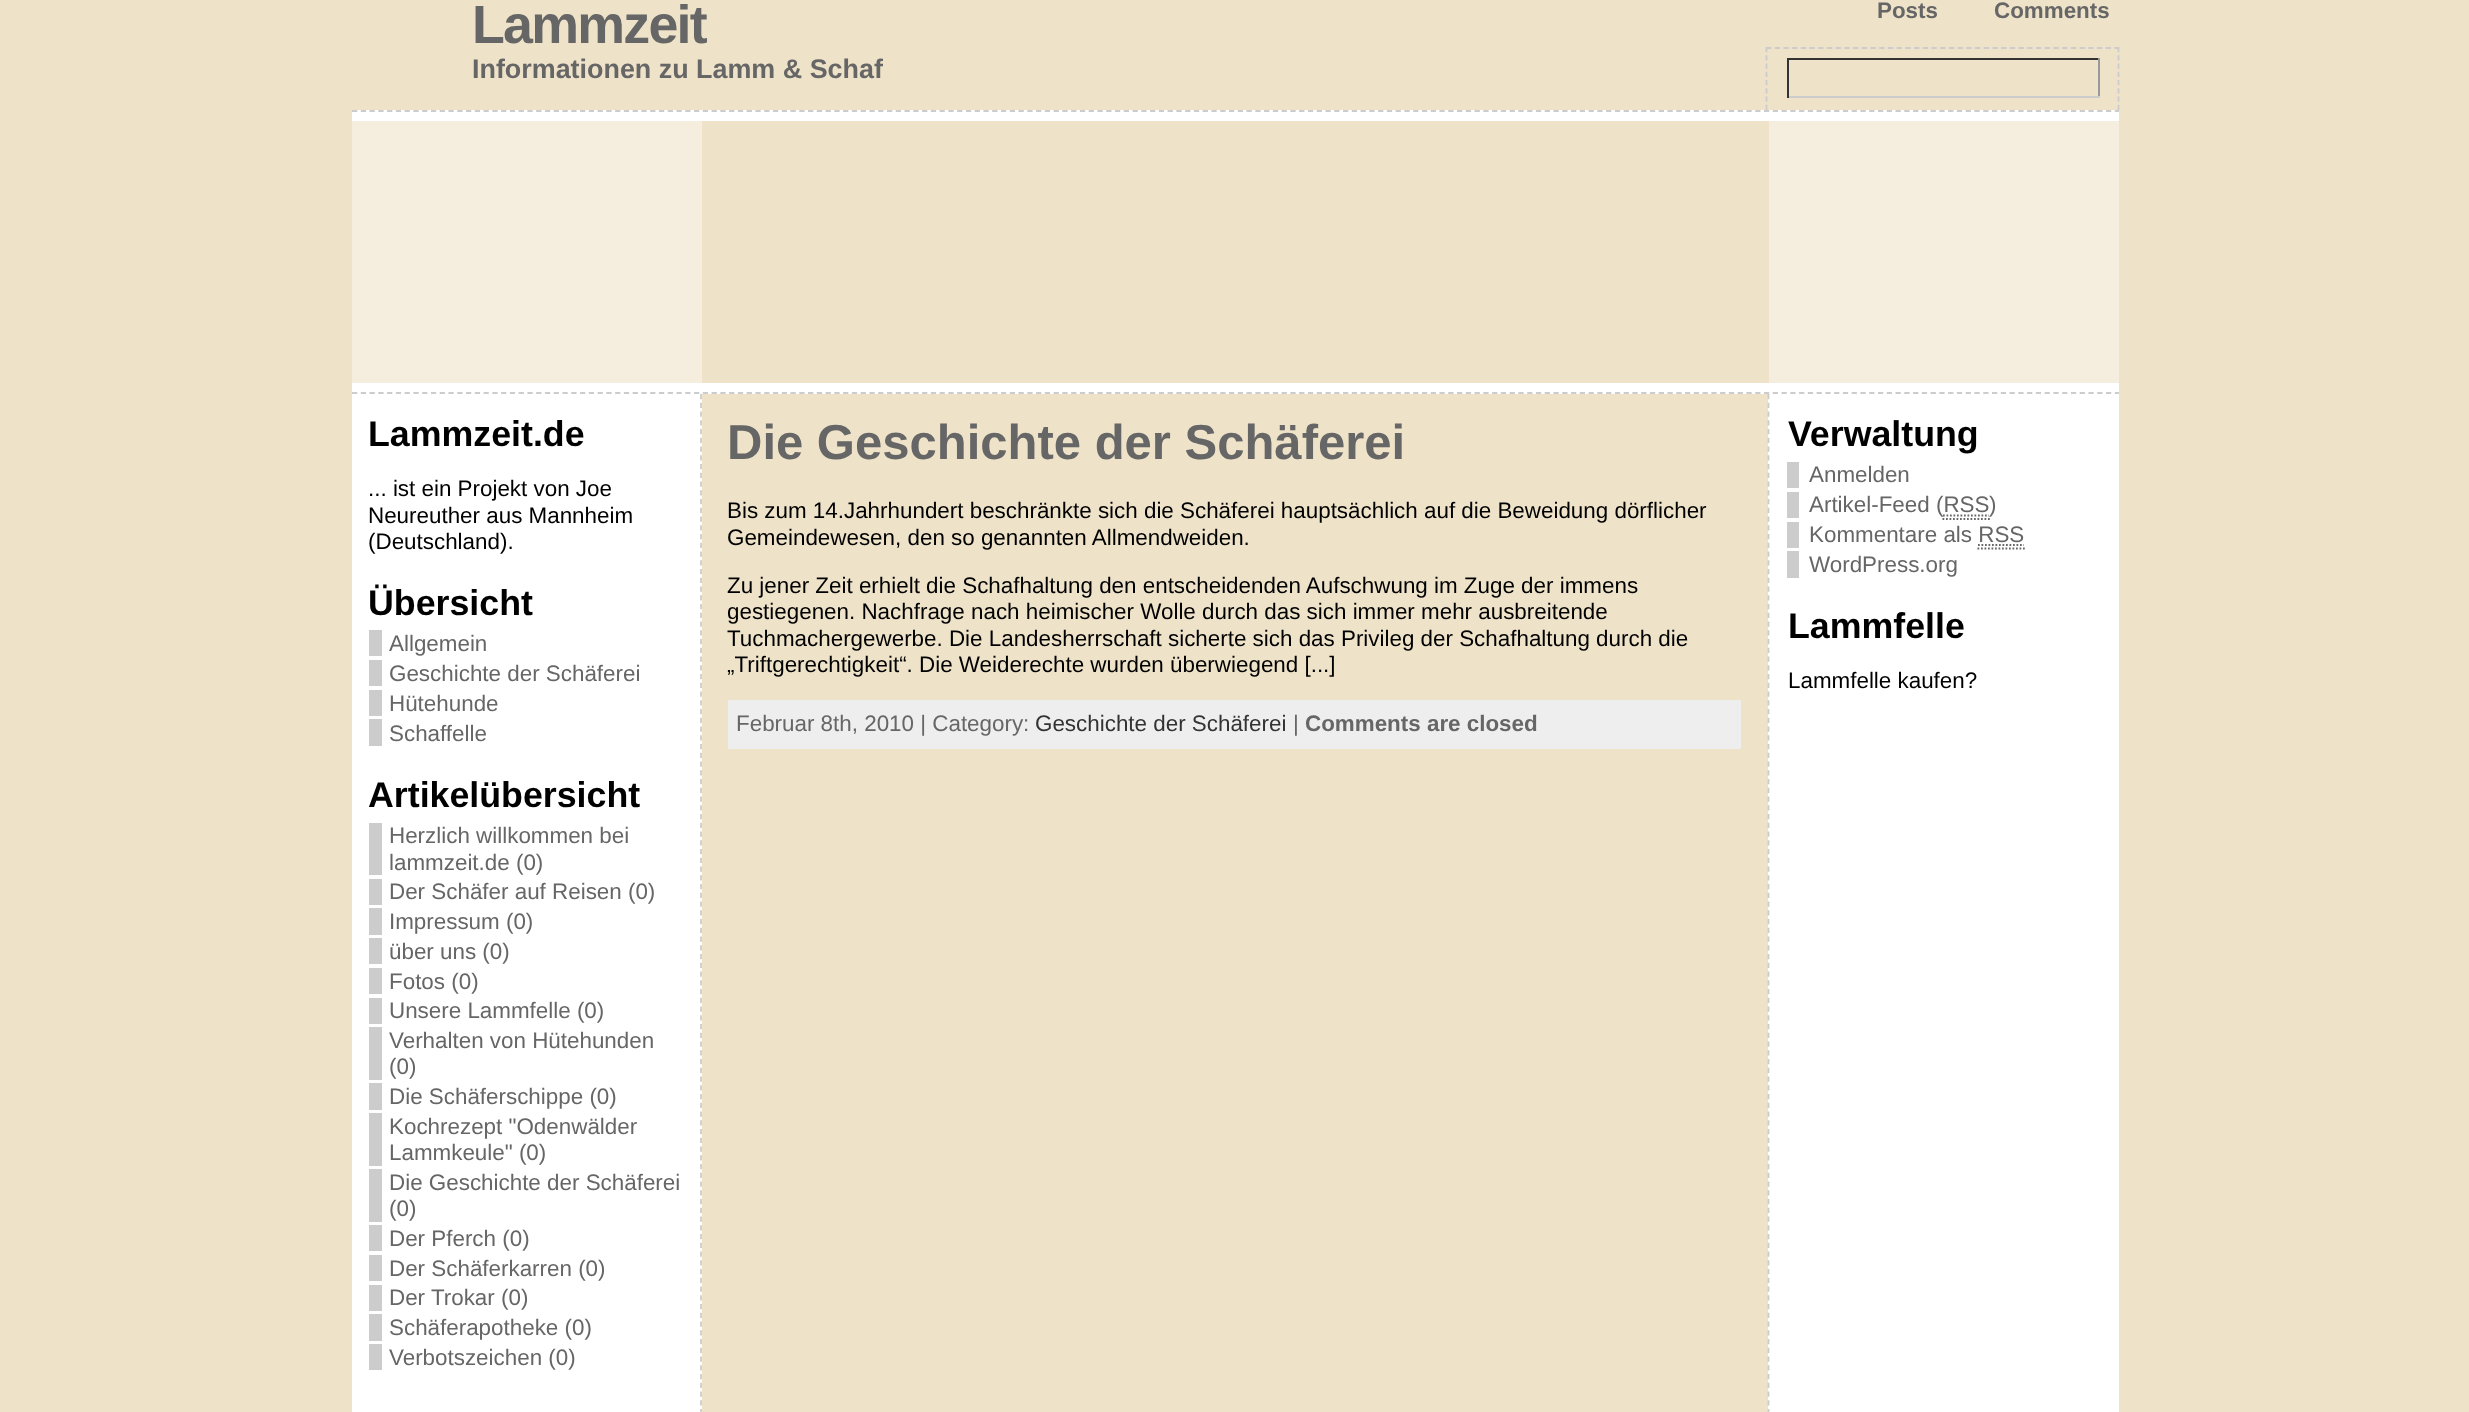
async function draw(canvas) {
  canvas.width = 2469
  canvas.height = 1412
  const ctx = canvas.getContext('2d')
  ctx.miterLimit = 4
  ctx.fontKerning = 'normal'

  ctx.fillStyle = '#eee3c9'
  ctx.fillRect(0, 0, 2469, 1412)
  ctx.letterSpacing = '-1.75px'
  ctx.font = 'bold 53.75px Liberation Sans'
  ctx.fillStyle = '#666'
  ctx.fillText('Lammzeit', 472, 43)
  ctx.letterSpacing = '0px'
  ctx.font = 'bold 26.9px Liberation Sans'
  ctx.fillText('Informationen zu Lamm & Schaf', 472, 78)
  ctx.font = 'bold 22.4px Liberation Sans'
  ctx.fillText('Posts', 1877, 18)
  ctx.fillText('Comments', 1994, 18)
  ctx.beginPath()
  ctx.moveTo(1766, 48)
  ctx.lineTo(2119, 48)
  ctx.strokeStyle = '#ccc'
  ctx.lineWidth = 1.8
  ctx.setLineDash([5.25, 3.46])
  ctx.stroke()
  ctx.beginPath()
  ctx.moveTo(2118.5, 47)
  ctx.lineTo(2118.5, 110)
  ctx.setLineDash([5.25, 2.99])
  ctx.stroke()
  ctx.beginPath()
  ctx.moveTo(1766.5, 47)
  ctx.lineTo(1766.5, 110)
  ctx.stroke()
  ctx.fillStyle = '#333'
  ctx.fillRect(1787, 58, 313, 2)
  ctx.fillStyle = '#999'
  ctx.fillRect(2098, 58, 2, 40)
  ctx.fillStyle = '#ccc'
  ctx.fillRect(1787, 96, 313, 2)
  ctx.fillStyle = '#333'
  ctx.fillRect(1787, 58, 2, 40)
  ctx.fillStyle = '#fff'
  ctx.fillRect(352, 110, 1767, 11)
  ctx.beginPath()
  ctx.moveTo(352, 111)
  ctx.lineTo(2119, 111)
  ctx.setLineDash([5.25, 3.52])
  ctx.stroke()
  ctx.fillStyle = '#f5eedf'
  ctx.fillRect(352, 121, 350, 262)
  ctx.fillRect(1769, 121, 350, 262)
  ctx.fillStyle = '#fff'
  ctx.fillRect(352, 383, 1767, 11)
  ctx.beginPath()
  ctx.moveTo(352, 393)
  ctx.lineTo(2119, 393)
  ctx.stroke()
  ctx.fillRect(352, 394, 350, 1018)
  ctx.beginPath()
  ctx.moveTo(701, 394)
  ctx.lineTo(701, 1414)
  ctx.setLineDash([5.25, 3.5])
  ctx.stroke()
  ctx.font = 'bold 35.75px Liberation Sans'
  ctx.fillStyle = '#000'
  ctx.fillText('Lammzeit.de', 368, 446)
  ctx.font = '22.4px Liberation Sans'
  ctx.fillText('... ist ein Projekt von Joe', 368, 496)
  ctx.fillText('Neureuther aus Mannheim', 368, 523)
  ctx.fillText('(Deutschland).', 368, 549)
  ctx.font = 'bold 35.75px Liberation Sans'
  ctx.fillText('Übersicht', 368, 615)
  ctx.font = '22.4px Liberation Sans'
  ctx.fillStyle = '#666'
  ctx.fillText('Allgemein', 389, 651)
  ctx.fillStyle = '#ccc'
  ctx.fillRect(369, 630, 13, 26)
  ctx.fillStyle = '#666'
  ctx.fillText('Geschichte der Schäferei', 389, 681)
  ctx.fillStyle = '#ccc'
  ctx.fillRect(369, 660, 13, 26)
  ctx.fillStyle = '#666'
  ctx.fillText('Hütehunde', 389, 711)
  ctx.fillStyle = '#ccc'
  ctx.fillRect(369, 690, 13, 26)
  ctx.fillStyle = '#666'
  ctx.fillText('Schaffelle', 389, 741)
  ctx.fillStyle = '#ccc'
  ctx.fillRect(369, 719, 13, 27)
  ctx.font = 'bold 35.75px Liberation Sans'
  ctx.fillStyle = '#000'
  ctx.fillText('Artikelübersicht', 368, 807)
  ctx.fillStyle = '#ccc'
  ctx.fillRect(369, 823, 13, 52)
  ctx.font = '22.4px Liberation Sans'
  ctx.fillStyle = '#666'
  ctx.fillText('Herzlich willkommen bei', 389, 843)
  ctx.fillText('lammzeit.de (0)', 389, 870)
  ctx.fillStyle = '#ccc'
  ctx.fillRect(369, 879, 13, 26)
  ctx.fillStyle = '#666'
  ctx.fillText('Der Schäfer auf Reisen (0)', 389, 899)
  ctx.fillStyle = '#ccc'
  ctx.fillRect(369, 908, 13, 27)
  ctx.fillStyle = '#666'
  ctx.fillText('Impressum (0)', 389, 929)
  ctx.fillStyle = '#ccc'
  ctx.fillRect(369, 938, 13, 26)
  ctx.fillStyle = '#666'
  ctx.fillText('über uns (0)', 389, 959)
  ctx.fillStyle = '#ccc'
  ctx.fillRect(369, 968, 13, 26)
  ctx.fillStyle = '#666'
  ctx.fillText('Fotos (0)', 389, 989)
  ctx.fillStyle = '#ccc'
  ctx.fillRect(369, 998, 13, 26)
  ctx.fillStyle = '#666'
  ctx.fillText('Unsere Lammfelle (0)', 389, 1018)
  ctx.fillStyle = '#ccc'
  ctx.fillRect(369, 1027, 13, 53)
  ctx.fillStyle = '#666'
  ctx.fillText('Verhalten von Hütehunden', 389, 1048)
  ctx.fillText('(0)', 389, 1074)
  ctx.fillStyle = '#ccc'
  ctx.fillRect(369, 1083, 13, 27)
  ctx.fillStyle = '#666'
  ctx.fillText('Die Schäferschippe (0)', 389, 1104)
  ctx.fillStyle = '#ccc'
  ctx.fillRect(369, 1113, 13, 53)
  ctx.fillStyle = '#666'
  ctx.fillText('Kochrezept "Odenwälder', 389, 1134)
  ctx.fillText('Lammkeule" (0)', 389, 1160)
  ctx.fillStyle = '#ccc'
  ctx.fillRect(369, 1169, 13, 53)
  ctx.fillStyle = '#666'
  ctx.fillText('Die Geschichte der Schäferei', 389, 1190)
  ctx.fillText('(0)', 389, 1216)
  ctx.fillStyle = '#ccc'
  ctx.fillRect(369, 1225, 13, 26)
  ctx.fillStyle = '#666'
  ctx.fillText('Der Pferch (0)', 389, 1246)
  ctx.fillStyle = '#ccc'
  ctx.fillRect(369, 1255, 13, 26)
  ctx.fillStyle = '#666'
  ctx.fillText('Der Schäferkarren (0)', 389, 1276)
  ctx.fillStyle = '#ccc'
  ctx.fillRect(369, 1285, 13, 26)
  ctx.fillStyle = '#666'
  ctx.fillText('Der Trokar (0)', 389, 1305)
  ctx.fillStyle = '#ccc'
  ctx.fillRect(369, 1314, 13, 27)
  ctx.fillStyle = '#666'
  ctx.fillText('Schäferapotheke (0)', 389, 1335)
  ctx.fillStyle = '#ccc'
  ctx.fillRect(369, 1344, 13, 26)
  ctx.fillStyle = '#666'
  ctx.fillText('Verbotszeichen (0)', 389, 1365)
  ctx.font = 'bold 49px Liberation Sans'
  ctx.fillText('Die Geschichte der Schäferei', 727, 459)
  ctx.font = '22.4px Liberation Sans'
  ctx.fillStyle = '#000'
  ctx.fillText('Bis zum 14.Jahrhundert beschränkte sich die Schäferei hauptsächlich auf die Beweidung dörflicher', 727, 518)
  ctx.fillText('Gemeindewesen, den so genannten Allmendweiden.', 727, 545)
  ctx.fillText('Zu jener Zeit erhielt die Schafhaltung den entscheidenden Aufschwung im Zuge der immens', 727, 593)
  ctx.fillText('gestiegenen. Nachfrage nach heimischer Wolle durch das sich immer mehr ausbreitende', 727, 619)
  ctx.fillText('Tuchmachergewerbe. Die Landesherrschaft sicherte sich das Privileg der Schafhaltung durch die', 727, 646)
  ctx.fillText('„Triftgerechtigkeit“. Die Weiderechte wurden überwiegend [...]', 727, 672)
  ctx.fillStyle = '#eee'
  ctx.fillRect(728, 700, 1013, 49)
  ctx.fillStyle = '#666'
  ctx.fillText('Februar 8th, 2010 | Category:', 736, 731)
  ctx.fillStyle = '#333'
  ctx.fillText('Geschichte der Schäferei', 1035, 731)
  ctx.fillStyle = '#666'
  ctx.fillText('|', 1293, 731)
  ctx.font = 'bold 22.4px Liberation Sans'
  ctx.fillText('Comments are closed', 1305, 731)
  ctx.fillStyle = '#fff'
  ctx.fillRect(1768, 394, 351, 1018)
  ctx.beginPath()
  ctx.moveTo(1768.5, 394)
  ctx.lineTo(1768.5, 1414)
  ctx.stroke()
  ctx.font = 'bold 35.75px Liberation Sans'
  ctx.fillStyle = '#000'
  ctx.fillText('Verwaltung', 1788, 446)
  ctx.fillStyle = '#ccc'
  ctx.fillRect(1787, 462, 12, 26)
  ctx.font = '22.4px Liberation Sans'
  ctx.fillStyle = '#666'
  ctx.fillText('Anmelden', 1809, 482)
  ctx.fillStyle = '#ccc'
  ctx.fillRect(1787, 492, 12, 26)
  ctx.fillStyle = '#666'
  ctx.fillText('Artikel-Feed (RSS', 1809, 512)
  ctx.beginPath()
  ctx.moveTo(1942.5, 519)
  ctx.lineTo(1990, 519)
  ctx.moveTo(1943, 515.5)
  ctx.lineTo(1989, 515.5)
  ctx.strokeStyle = '#666'
  ctx.setLineDash([1.75, 1.75])
  ctx.stroke()
  ctx.fillText(')', 1989, 512)
  ctx.fillStyle = '#ccc'
  ctx.fillRect(1787, 522, 12, 26)
  ctx.fillStyle = '#666'
  ctx.fillText('Kommentare als RSS', 1809, 542)
  ctx.beginPath()
  ctx.moveTo(1977.5, 548.5)
  ctx.lineTo(2025, 548.5)
  ctx.moveTo(1978, 545)
  ctx.lineTo(2024, 545)
  ctx.stroke()
  ctx.fillStyle = '#ccc'
  ctx.fillRect(1787, 551, 12, 27)
  ctx.fillStyle = '#666'
  ctx.fillText('WordPress.org', 1809, 572)
  ctx.font = 'bold 35.75px Liberation Sans'
  ctx.fillStyle = '#000'
  ctx.fillText('Lammfelle', 1788, 638)
  ctx.font = '22.4px Liberation Sans'
  ctx.fillText('Lammfelle kaufen?', 1788, 688)
}

draw(document.querySelector('canvas'))
